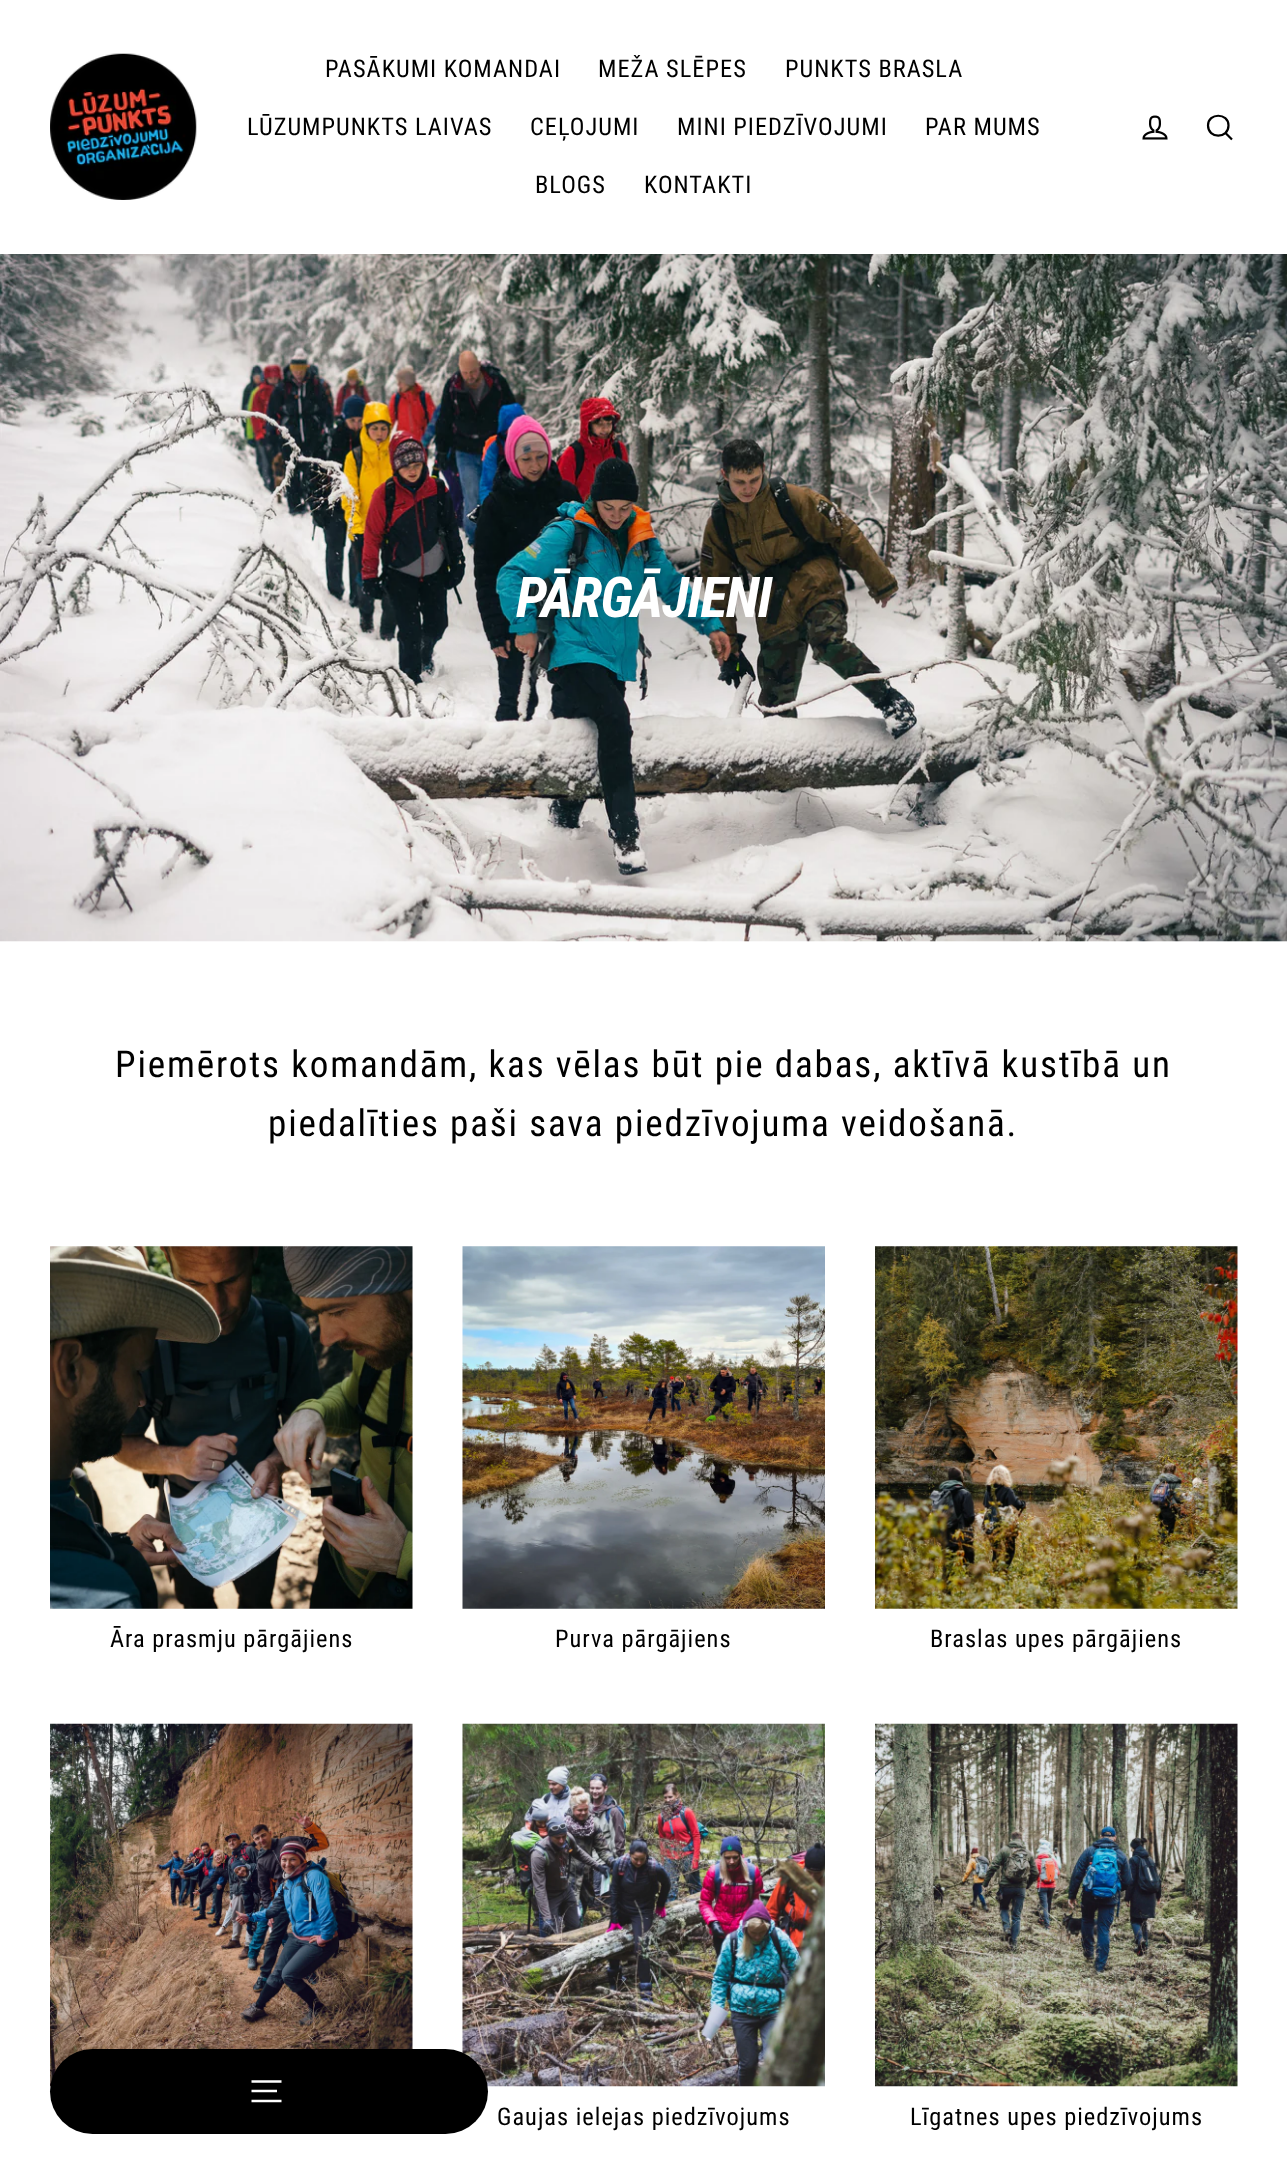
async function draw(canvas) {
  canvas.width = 1287
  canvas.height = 2183
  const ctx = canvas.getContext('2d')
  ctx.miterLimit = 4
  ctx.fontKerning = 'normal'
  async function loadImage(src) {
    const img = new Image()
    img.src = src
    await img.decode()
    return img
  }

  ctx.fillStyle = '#fff'
  ctx.fillRect(0, 0, 1287, 2183)
  ctx.drawImage(await loadImage('image0.png'), 50, 53, 147, 147)
  ctx.letterSpacing = '1px'
  ctx.font = '24.4px Roboto Condensed'
  ctx.fillStyle = '#000'
  ctx.fillText('PASĀKUMI KOMANDAI', 325, 77)
  ctx.fillText('MEŽA SLĒPES', 598, 77)
  ctx.fillText('PUNKTS BRASLA', 785, 77)
  ctx.fillText('LŪZUMPUNKTS LAIVAS', 247, 135)
  ctx.fillText('CEĻOJUMI', 530, 135)
  ctx.fillText('MINI PIEDZĪVOJUMI', 677, 135)
  ctx.fillText('PAR MUMS', 925, 135)
  ctx.fillText('BLOGS', 535, 193)
  ctx.fillText('KONTAKTI', 644, 193)
  ctx.drawImage(await loadImage('image1.png'), 1142, 115, 26, 25)
  ctx.beginPath()
  ctx.moveTo(1228.5, 125.5)
  ctx.bezierCurveTo(1228.5, 139, 1208, 139, 1208, 125.5)
  ctx.bezierCurveTo(1208, 112.5, 1228.5, 112.5, 1228.5, 125.5)
  ctx.closePath()
  ctx.moveTo(1232, 139.5)
  ctx.lineTo(1225.5, 133)
  ctx.strokeStyle = '#000'
  ctx.lineWidth = 2.2
  ctx.stroke()
  ctx.drawImage(await loadImage('image6.png'), 50, 1723, 363, 364)
  ctx.drawImage(await loadImage('image7.png'), 462, 1723, 363, 364)
  ctx.beginPath()
  ctx.roundRect(50, 2049, 438, 85, 42.5)
  ctx.fill()
  ctx.beginPath()
  ctx.moveTo(251.5, 2081.5)
  ctx.lineTo(281.5, 2081.5)
  ctx.moveTo(251.5, 2091)
  ctx.lineTo(277, 2091)
  ctx.moveTo(251.5, 2101)
  ctx.lineTo(281.5, 2101)
  ctx.strokeStyle = '#fff'
  ctx.lineWidth = 2.3
  ctx.stroke()
  ctx.drawImage(await loadImage('image2.png'), 0, 254, 1287, 688)
  ctx.letterSpacing = '-1.5px'
  ctx.font = 'italic bold 56.25px Roboto Condensed'
  ctx.fillStyle = '#fff'
  ctx.fillText('PĀRGĀJIENI', 516, 617)
  ctx.letterSpacing = '1.85px'
  ctx.font = '37.1px Roboto Condensed'
  ctx.fillStyle = '#000'
  ctx.fillText('Piemērots komandām, kas vēlas būt pie dabas, aktīvā kustībā un', 115, 1077)
  ctx.fillText('piedalīties paši sava piedzīvojuma veidošanā.', 268, 1136)
  ctx.drawImage(await loadImage('image3.png'), 50, 1246, 363, 363)
  ctx.letterSpacing = '1px'
  ctx.font = '24.4px Roboto Condensed'
  ctx.fillText('Āra prasmju pārgājiens', 110, 1647)
  ctx.drawImage(await loadImage('image4.png'), 462, 1246, 363, 363)
  ctx.fillText('Purva pārgājiens', 555, 1647)
  ctx.drawImage(await loadImage('image5.png'), 875, 1246, 363, 363)
  ctx.fillText('Braslas upes pārgājiens', 930, 1647)
  ctx.fillText('Gaujas ielejas piedzīvojums', 497, 2125)
  ctx.drawImage(await loadImage('image8.png'), 875, 1723, 363, 364)
  ctx.fillText('Līgatnes upes piedzīvojums', 910, 2125)
}

draw(document.querySelector('canvas'))
